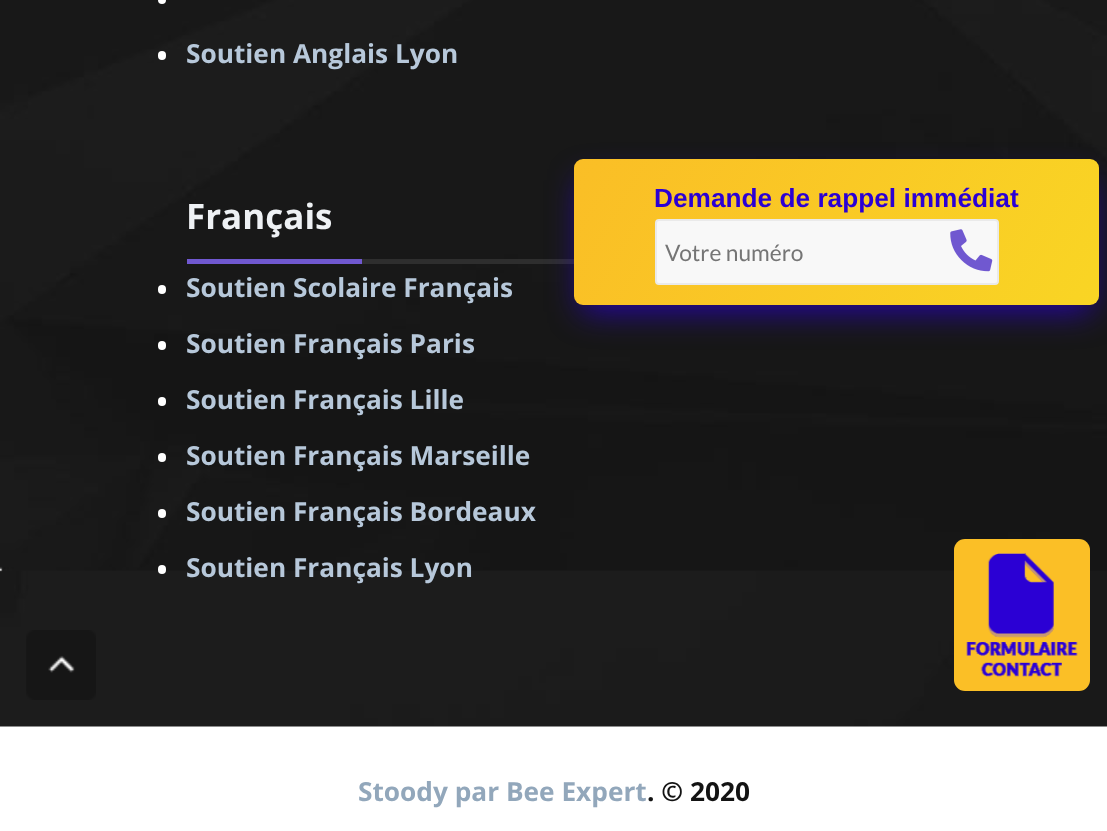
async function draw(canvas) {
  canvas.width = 1107
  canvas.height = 831
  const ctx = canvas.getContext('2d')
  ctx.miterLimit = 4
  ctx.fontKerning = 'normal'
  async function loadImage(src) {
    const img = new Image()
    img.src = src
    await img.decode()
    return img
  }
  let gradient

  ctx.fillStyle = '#fff'
  ctx.fillRect(0, 0, 1107, 831)
  ctx.drawImage(await loadImage('image1.png'), 0, 0, 1107, 727)
  ctx.drawImage(await loadImage('image0.png'), 26, 630, 70, 70)
  ctx.beginPath()
  ctx.arc(162, 0, 4, 0, 2 * Math.PI)
  ctx.fill()
  ctx.beginPath()
  ctx.roundRect(158, 51, 8, 9, 4)
  ctx.fill()
  ctx.font = 'bold 26.25px Open Sans'
  ctx.fillStyle = '#b7c8da'
  ctx.fillText('Soutien Anglais Lyon', 186, 63)
  ctx.fillStyle = '#2e2e2e'
  ctx.fillRect(362, 259, 212, 5)
  ctx.font = 'bold 35px Open Sans'
  ctx.fillStyle = '#eef1f4'
  ctx.fillText('Français', 186, 229)
  ctx.fillStyle = '#7058d0'
  ctx.fillRect(187, 259, 175, 5)
  ctx.fillStyle = '#fff'
  ctx.beginPath()
  ctx.roundRect(158, 285, 8, 9, 4)
  ctx.fill()
  ctx.font = 'bold 26.25px Open Sans'
  ctx.fillStyle = '#b7c8da'
  ctx.fillText('Soutien Scolaire Français', 186, 297)
  ctx.fillStyle = '#fff'
  ctx.beginPath()
  ctx.roundRect(158, 341, 8, 9, 4)
  ctx.fill()
  ctx.fillStyle = '#b7c8da'
  ctx.fillText('Soutien Français Paris', 186, 353)
  ctx.fillStyle = '#fff'
  ctx.beginPath()
  ctx.roundRect(158, 397, 8, 9, 4)
  ctx.fill()
  ctx.fillStyle = '#b7c8da'
  ctx.fillText('Soutien Français Lille', 186, 409)
  ctx.fillStyle = '#fff'
  ctx.beginPath()
  ctx.roundRect(158, 453, 8, 9, 4)
  ctx.fill()
  ctx.fillStyle = '#b7c8da'
  ctx.fillText('Soutien Français Marseille', 186, 465)
  ctx.fillStyle = '#fff'
  ctx.beginPath()
  ctx.roundRect(158, 509, 8, 9, 4)
  ctx.fill()
  ctx.fillStyle = '#b7c8da'
  ctx.fillText('Soutien Français Bordeaux', 186, 521)
  ctx.fillStyle = '#fff'
  ctx.beginPath()
  ctx.roundRect(158, 565, 8, 9, 4)
  ctx.fill()
  ctx.fillStyle = '#b7c8da'
  ctx.fillText('Soutien Français Lyon', 186, 577)
  ctx.fillStyle = '#92a7bb'
  ctx.fillText('Stoody par Bee Expert', 358, 801)
  ctx.fillStyle = '#131313'
  ctx.fillText('. © 2020', 647, 801)
  ctx.fillStyle = '#2b00d4bd'
  ctx.filter = 'blur(16px)'
  ctx.beginPath()
  ctx.roundRect(581, 180, 511, 132, 2)
  ctx.fill()
  ctx.filter = 'none'
  gradient = ctx.createLinearGradient(608, 100, 1065, 364)
  gradient.addColorStop(0, '#fabe26')
  gradient.addColorStop(1, '#f9d524')
  ctx.fillStyle = gradient
  ctx.beginPath()
  ctx.roundRect(574, 159, 525, 146, 9)
  ctx.fill()
  ctx.font = 'bold 26.25px Liberation Sans'
  ctx.fillStyle = '#2b00d4'
  ctx.fillText('Demande de rappel immédiat', 654, 207)
  ctx.fillStyle = '#f8f8f8'
  ctx.beginPath()
  ctx.roundRect(656, 220, 342, 64, 3)
  ctx.fill()
  ctx.strokeStyle = '#eaeaea'
  ctx.lineWidth = 2
  ctx.stroke()
  ctx.font = '22.75px Lato'
  ctx.fillStyle = '#757575'
  ctx.fillText('Votre numéro', 665, 261)
  ctx.drawImage(await loadImage('image2.png'), 950, 229, 43, 43)
  ctx.fillStyle = '#fbbf26'
  ctx.beginPath()
  ctx.roundRect(954, 539, 136, 152, 11)
  ctx.fill()
  ctx.drawImage(await loadImage('image3.png'), 966, 553, 112, 124)
}

draw(document.querySelector('canvas'))
